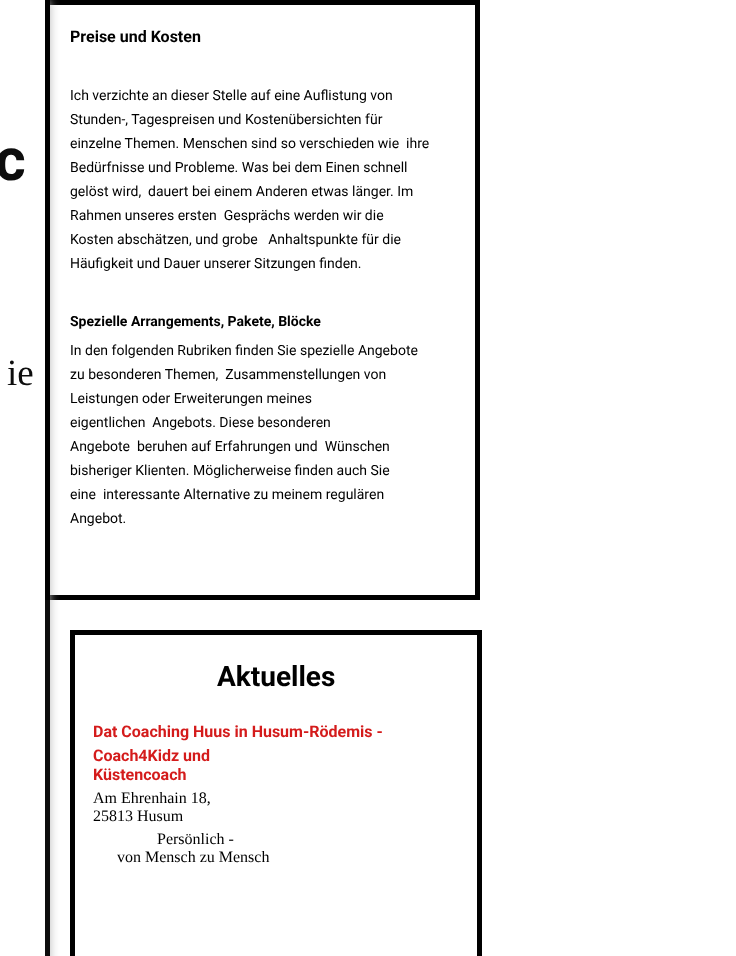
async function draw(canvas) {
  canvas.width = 736
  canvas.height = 956
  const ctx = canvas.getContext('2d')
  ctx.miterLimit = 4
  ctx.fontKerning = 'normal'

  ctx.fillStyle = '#fff'
  ctx.fillRect(0, 0, 736, 956)
  ctx.strokeStyle = '#000'
  ctx.lineWidth = 5
  ctx.strokeRect(47.5, 2.5, 430, 595)
  ctx.save()
  ctx.beginPath()
  ctx.rect(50, 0, 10, 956)
  ctx.clip()
  ctx.fillStyle = '#b5b5b5f2'
  ctx.filter = 'blur(5px)'
  ctx.beginPath()
  ctx.rect(-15, 0, 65, 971)
  ctx.fill()
  ctx.filter = 'none'
  ctx.restore()
  ctx.fillStyle = '#000000f2'
  ctx.fillRect(45, 600, 5, 356)
  ctx.font = 'bold 59px Roboto'
  ctx.fillStyle = '#0d0d0d'
  ctx.fillText('c', -5, 180)
  ctx.font = '37px Liberation Serif'
  ctx.fillText('ie', 7, 385)
  ctx.font = 'bold 16px Roboto'
  ctx.fillStyle = '#000'
  ctx.fillText('Preise und Kosten', 70, 42)
  ctx.font = '14px Roboto'
  ctx.fillText('Ich verzichte an dieser Stelle auf eine Auflistung von', 70, 100)
  ctx.fillText('Stunden-, Tagespreisen und Kostenübersichten für', 70, 124)
  ctx.fillText('einzelne Themen. Menschen sind so verschieden wie  ihre', 70, 148)
  ctx.fillText('Bedürfnisse und Probleme. Was bei dem Einen schnell', 70, 172)
  ctx.fillText('gelöst wird,  dauert bei einem Anderen etwas länger. Im', 70, 196)
  ctx.fillText('Rahmen unseres ersten  Gesprächs werden wir die', 70, 220)
  ctx.fillText('Kosten abschätzen, und grobe   Anhaltspunkte für die', 70, 244)
  ctx.fillText('Häufigkeit und Dauer unserer Sitzungen finden.', 70, 268)
  ctx.font = 'bold 14px Roboto'
  ctx.fillText('Spezielle Arrangements, Pakete, Blöcke', 70, 326)
  ctx.font = '14px Roboto'
  ctx.fillText('In den folgenden Rubriken finden Sie spezielle Angebote', 70, 355)
  ctx.fillText('zu besonderen Themen,  Zusammenstellungen von', 70, 379)
  ctx.fillText('Leistungen oder Erweiterungen meines', 70, 403)
  ctx.fillText('eigentlichen  Angebots. Diese besonderen', 70, 427)
  ctx.fillText('Angebote  beruhen auf Erfahrungen und  Wünschen', 70, 451)
  ctx.fillText('bisheriger Klienten. Möglicherweise finden auch Sie', 70, 475)
  ctx.fillText('eine  interessante Alternative zu meinem regulären', 70, 499)
  ctx.fillText('Angebot.', 70, 523)
  ctx.strokeRect(72.5, 632.5, 407, 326)
  ctx.font = 'bold 28px Roboto'
  ctx.fillText('Aktuelles', 217, 686)
  ctx.font = 'bold 16px Roboto'
  ctx.fillStyle = '#d41b1b'
  ctx.fillText('Dat Coaching Huus in Husum-Rödemis -', 93, 737)
  ctx.fillText('Coach4Kidz und', 93, 761)
  ctx.fillText('Küstencoach', 93, 780)
  ctx.font = '16px Liberation Serif'
  ctx.fillStyle = '#000'
  ctx.fillText('Am Ehrenhain 18,', 93, 803)
  ctx.fillText('25813 Husum', 93, 821)
  ctx.fillText('Persönlich -', 157, 844)
  ctx.fillText('von Mensch zu Mensch', 117, 862)
}

draw(document.querySelector('canvas'))
